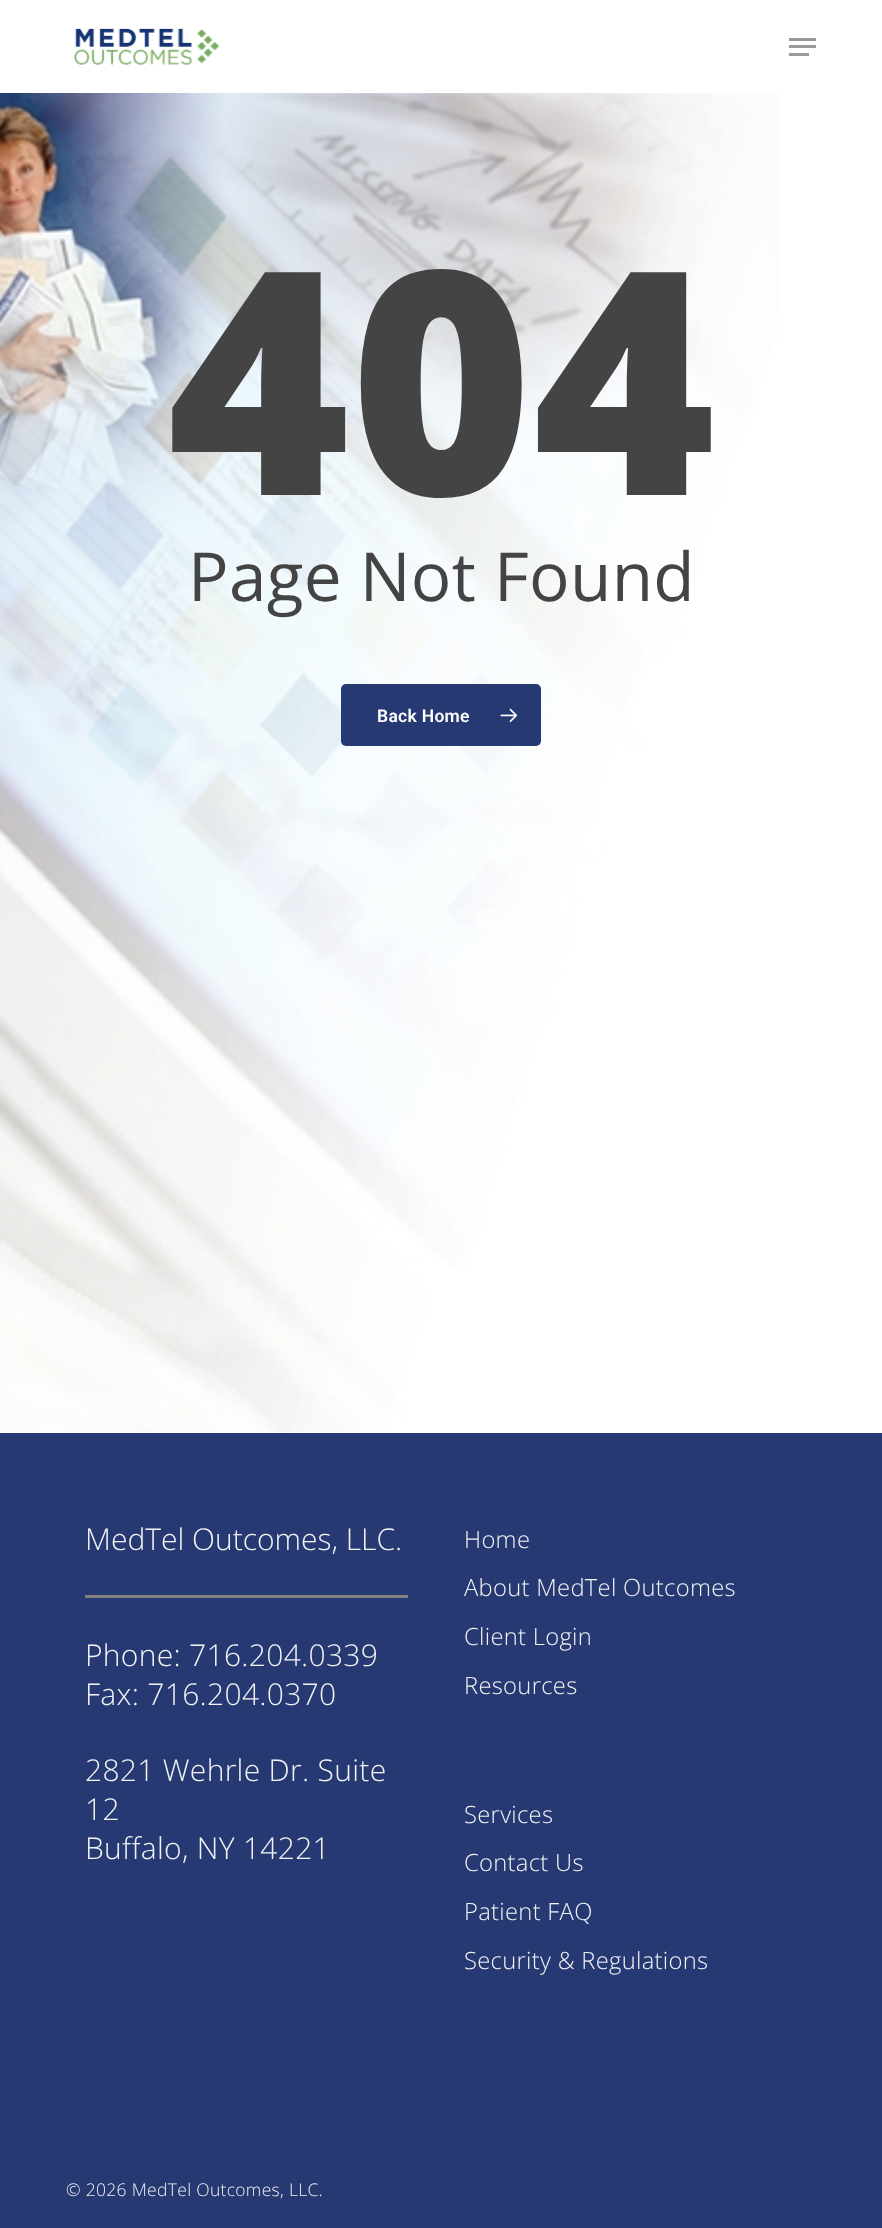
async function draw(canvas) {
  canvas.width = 882
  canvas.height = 2228
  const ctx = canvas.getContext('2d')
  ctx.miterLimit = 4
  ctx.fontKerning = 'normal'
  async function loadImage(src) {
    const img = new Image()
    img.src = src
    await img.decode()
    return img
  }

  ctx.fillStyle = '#fff'
  ctx.fillRect(0, 0, 882, 2228)
  ctx.drawImage(await loadImage('image0.png'), 74, 28, 146, 37)
  ctx.fillStyle = '#999'
  ctx.fillRect(789, 38, 27, 3)
  ctx.fillRect(789, 53, 20, 3)
  ctx.fillRect(789, 45, 27, 3)
  ctx.drawImage(await loadImage('image1.png'), 0, 93, 780, 1340)
  ctx.font = '800 312px Open Sans'
  ctx.fillStyle = '#444'
  ctx.fillText('404', 167, 495)
  ctx.letterSpacing = '0.3px'
  ctx.font = '67.5px Open Sans'
  ctx.fillText('Page Not Found', 188, 601)
  ctx.fillStyle = '#263973'
  ctx.beginPath()
  ctx.roundRect(341, 684, 200, 62, 5)
  ctx.fill()
  ctx.font = '600 17.5px Roboto'
  ctx.fillStyle = '#fff'
  ctx.fillText('Back Home', 377, 722)
  ctx.drawImage(await loadImage('image2.png'), 500, 708, 17, 14)
  ctx.fillStyle = '#263973'
  ctx.fillRect(0, 1433, 882, 795)
  ctx.letterSpacing = '0px'
  ctx.font = '300 30px Open Sans'
  ctx.fillStyle = '#f2f2f2'
  ctx.fillText('MedTel Outcomes, LLC.', 85, 1550)
  ctx.fillStyle = '#808080'
  ctx.fillRect(85, 1595, 323, 3)
  ctx.letterSpacing = '0.3px'
  ctx.fillStyle = '#f2f2f2'
  ctx.fillText('Phone: 716.204.0339', 85, 1666)
  ctx.fillText('Fax: 716.204.0370', 85, 1705)
  ctx.fillText('2821 Wehrle Dr. Suite', 85, 1781)
  ctx.fillText('12', 85, 1820)
  ctx.fillText('Buffalo, NY 14221', 85, 1859)
  ctx.font = '300 23.75px Open Sans'
  ctx.fillText('Home', 464, 1548)
  ctx.fillText('About MedTel Outcomes', 464, 1596)
  ctx.fillText('Client Login', 464, 1645)
  ctx.fillText('Resources', 464, 1694)
  ctx.fillText('Services', 464, 1823)
  ctx.fillText('Contact Us', 464, 1871)
  ctx.fillText('Patient FAQ', 464, 1920)
  ctx.fillText('Security & Regulations', 464, 1969)
  ctx.font = '300 17.5px Open Sans'
  ctx.fillText('© 2026 MedTel Outcomes, LLC.', 66, 2196)
}

draw(document.querySelector('canvas'))
